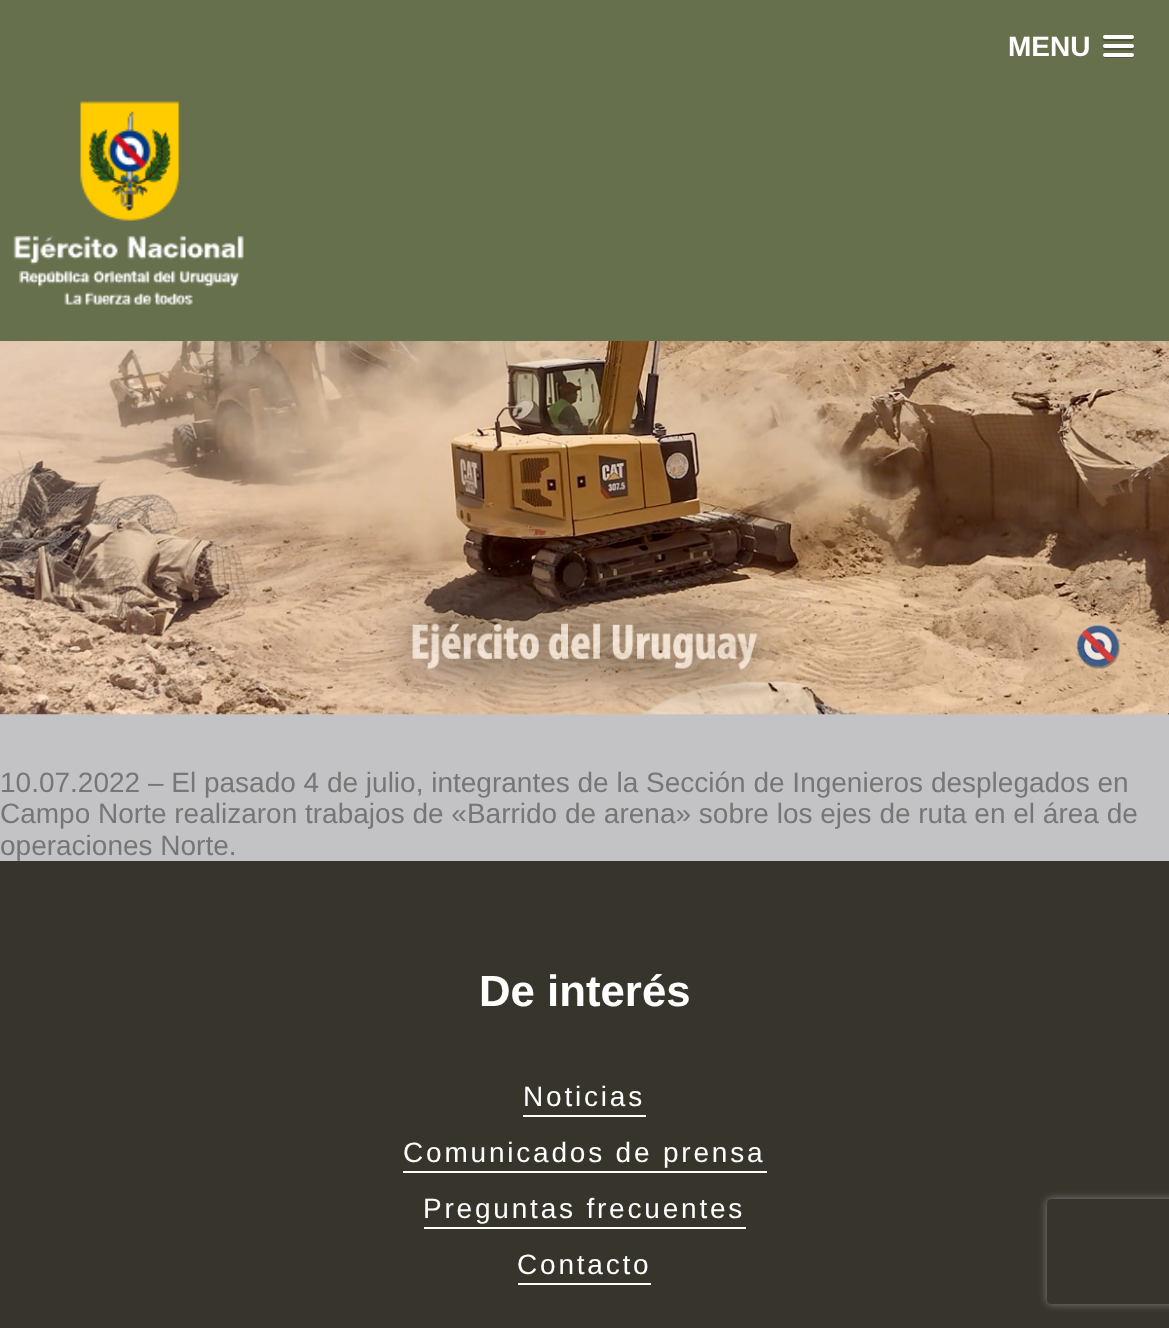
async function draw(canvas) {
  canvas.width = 1169
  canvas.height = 1328
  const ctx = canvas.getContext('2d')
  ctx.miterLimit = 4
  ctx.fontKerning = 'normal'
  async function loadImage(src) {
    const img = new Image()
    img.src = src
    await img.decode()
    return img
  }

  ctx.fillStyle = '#c3c3c6'
  ctx.fillRect(0, 0, 1169, 1328)
  ctx.fillStyle = '#66704d'
  ctx.fillRect(0, 0, 1169, 341)
  ctx.font = 'bold 28px Liberation Sans'
  ctx.fillStyle = '#fff'
  ctx.fillText('MENU', 1008, 56)
  ctx.fillStyle = '#4d543a'
  ctx.beginPath()
  ctx.moveTo(1103, 38)
  ctx.bezierCurveTo(1101.5, 42, 1108.5, 41, 1109.5, 41)
  ctx.lineTo(1127.5, 41)
  ctx.bezierCurveTo(1128.5, 41, 1133.5, 42, 1134, 39.5)
  ctx.lineTo(1133.5, 38)
  ctx.lineTo(1132.5, 38.5)
  ctx.bezierCurveTo(1130, 39, 1104, 39, 1103, 38)
  ctx.closePath()
  ctx.fill()
  ctx.fillStyle = '#fff'
  ctx.beginPath()
  ctx.roundRect(1103, 35, 31, 4, 2)
  ctx.fill()
  ctx.fillStyle = '#4d543a'
  ctx.beginPath()
  ctx.moveTo(1103.5, 47)
  ctx.bezierCurveTo(1101, 51, 1109, 50, 1109.5, 50)
  ctx.lineTo(1127.5, 50)
  ctx.bezierCurveTo(1128.5, 50, 1133.5, 51, 1134, 48.5)
  ctx.bezierCurveTo(1134, 48, 1134, 47, 1133.5, 46.5)
  ctx.lineTo(1132.5, 47)
  ctx.bezierCurveTo(1130, 47.5, 1104, 47.5, 1103.5, 47)
  ctx.closePath()
  ctx.fill()
  ctx.fillStyle = '#fff'
  ctx.beginPath()
  ctx.roundRect(1103, 44, 31, 4, 2)
  ctx.fill()
  ctx.fillStyle = '#4d543a'
  ctx.beginPath()
  ctx.moveTo(1103, 55.5)
  ctx.bezierCurveTo(1102, 59, 1108.5, 58, 1109.5, 58)
  ctx.lineTo(1127.5, 58)
  ctx.bezierCurveTo(1128.5, 58, 1135.5, 59, 1134, 55)
  ctx.lineTo(1132.5, 56)
  ctx.lineTo(1104, 56)
  ctx.closePath()
  ctx.fill()
  ctx.fillStyle = '#fff'
  ctx.beginPath()
  ctx.roundRect(1103, 53, 31, 4, 2)
  ctx.fill()
  ctx.drawImage(await loadImage('image0.png'), 13, 101, 231, 204)
  ctx.drawImage(await loadImage('image1.png'), 0, 341, 1169, 374)
  ctx.font = '28px Liberation Sans'
  ctx.fillStyle = '#767676'
  ctx.fillText('10.07.2022 – El pasado 4 de julio, integrantes de la Sección de Ingenieros desplegados en', 0, 792)
  ctx.fillText('Campo Norte realizaron trabajos de «Barrido de arena» sobre los ejes de ruta en el área de', 0, 823)
  ctx.fillText('operaciones Norte.', 0, 855)
  ctx.fillStyle = '#37342b'
  ctx.fillRect(0, 861, 1169, 467)
  ctx.font = 'bold 43.75px Liberation Sans'
  ctx.fillStyle = '#fff'
  ctx.fillText('De interés', 479, 1006)
  ctx.letterSpacing = '2.8px'
  ctx.font = '28px Liberation Sans'
  ctx.fillText('Noticias', 523, 1106)
  ctx.fillRect(523, 1115, 123, 2)
  ctx.fillText('Comunicados de prensa', 403, 1162)
  ctx.fillRect(403, 1171, 364, 2)
  ctx.fillText('Preguntas frecuentes', 423, 1218)
  ctx.fillRect(424, 1227, 322, 2)
  ctx.fillText('Contacto', 517, 1274)
  ctx.fillRect(518, 1283, 133, 2)
  ctx.save()
  ctx.beginPath()
  ctx.moveTo(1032, 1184)
  ctx.lineTo(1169, 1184)
  ctx.lineTo(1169, 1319)
  ctx.lineTo(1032, 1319)
  ctx.closePath()
  ctx.moveTo(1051, 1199)
  ctx.lineTo(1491, 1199)
  ctx.bezierCurveTo(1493, 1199, 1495, 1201, 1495, 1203)
  ctx.lineTo(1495, 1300)
  ctx.bezierCurveTo(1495, 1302, 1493, 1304, 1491, 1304)
  ctx.lineTo(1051, 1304)
  ctx.bezierCurveTo(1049, 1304, 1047, 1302, 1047, 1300)
  ctx.lineTo(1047, 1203)
  ctx.bezierCurveTo(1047, 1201, 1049, 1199, 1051, 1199)
  ctx.closePath()
  ctx.clip('evenodd')
  ctx.fillStyle = '#808080'
  ctx.filter = 'blur(4.5px)'
  ctx.beginPath()
  ctx.roundRect(1047, 1199, 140, 105, 4)
  ctx.fill()
  ctx.filter = 'none'
  ctx.restore()
}

draw(document.querySelector('canvas'))
